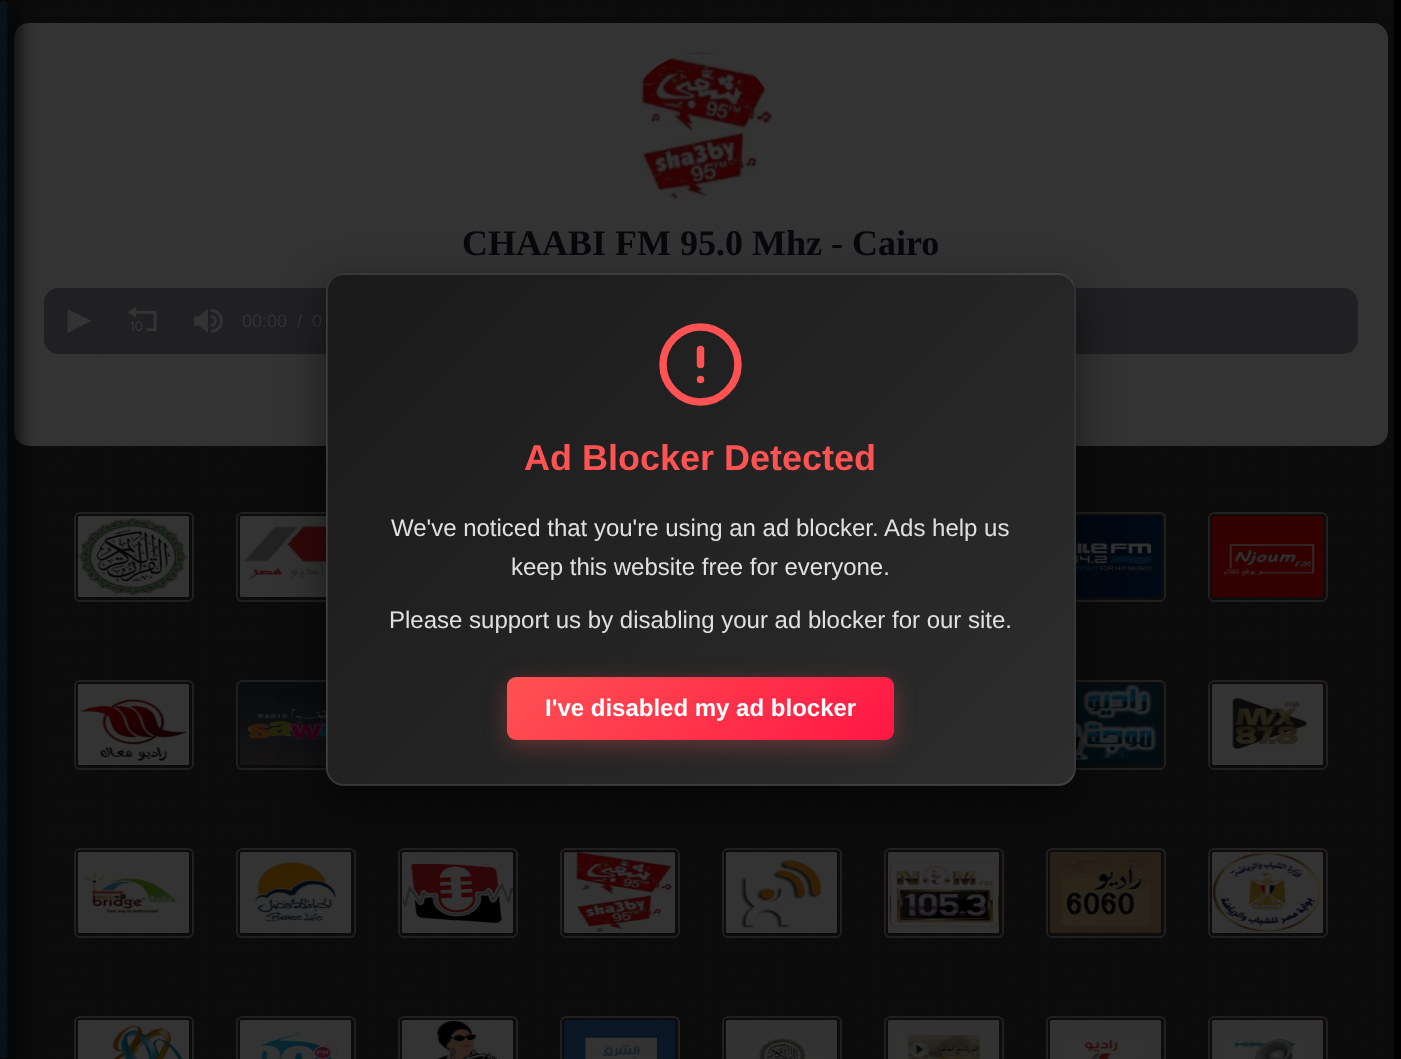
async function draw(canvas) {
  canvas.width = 1401
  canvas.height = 1059
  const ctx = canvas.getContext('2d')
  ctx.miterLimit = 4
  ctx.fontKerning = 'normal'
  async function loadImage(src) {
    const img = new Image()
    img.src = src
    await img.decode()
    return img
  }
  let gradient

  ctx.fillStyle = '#000'
  ctx.fillRect(0, 0, 1401, 1059)
  ctx.drawImage(await loadImage('image1.png'), 7, 0, 1387, 1059)
  ctx.beginPath()
  ctx.roundRect(9, -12, 1384, 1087, 14)
  ctx.strokeStyle = '#0a0a0a'
  ctx.lineWidth = 2
  ctx.stroke()
  ctx.fillStyle = '#333'
  ctx.beginPath()
  ctx.roundRect(14, 23, 1374, 423, 15)
  ctx.fill()
  ctx.fillStyle = '#202022'
  ctx.beginPath()
  ctx.roundRect(44, 288, 1314, 66, 15)
  ctx.fill()
  ctx.beginPath()
  ctx.roundRect(44, 288, 66, 66, 15)
  ctx.fill()
  ctx.fillStyle = '#040404'
  ctx.filter = 'blur(9px)'
  ctx.beginPath()
  ctx.roundRect(2, 6, 16, 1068, 8)
  ctx.fill()
  ctx.filter = 'none'
  ctx.drawImage(await loadImage('image0.png'), 0, 0, 8, 1059)
  ctx.fillStyle = '#00203157'
  ctx.fillRect(0, 2, 8, 1056)
  ctx.drawImage(await loadImage('image2.png'), 640, 52, 133, 147)
  ctx.font = 'bold 36px Liberation Serif'
  ctx.fillStyle = '#060809'
  ctx.fillText('CHAABI FM 95.0 Mhz - Cairo', 462, 255)
  ctx.fillStyle = '#333'
  ctx.beginPath()
  ctx.moveTo(68, 333)
  ctx.lineTo(67.5, 333)
  ctx.lineTo(67.5, 309.5)
  ctx.lineTo(67.5, 309)
  ctx.lineTo(91, 320.5)
  ctx.lineTo(91, 321)
  ctx.closePath()
  ctx.fill()
  ctx.drawImage(await loadImage('image3.png'), 128, 307, 29, 25)
  ctx.drawImage(await loadImage('image4.png'), 194, 309, 29, 24)
  ctx.font = '18px Liberation Sans'
  ctx.fillText('00:00', 242, 327)
  ctx.fillText('/', 297, 327)
  ctx.fillText('0', 312, 327)
  ctx.beginPath()
  ctx.roundRect(75, 513, 118, 88, 5)
  ctx.strokeStyle = '#221f1f'
  ctx.stroke()
  ctx.drawImage(await loadImage('image5.png'), 78, 516, 111, 81)
  ctx.beginPath()
  ctx.roundRect(237, 513, 118, 88, 5)
  ctx.stroke()
  ctx.drawImage(await loadImage('image6.png'), 240, 516, 86, 81)
  ctx.beginPath()
  ctx.roundRect(1047, 513, 118, 88, 5)
  ctx.stroke()
  ctx.drawImage(await loadImage('image7.png'), 1076, 516, 85, 81)
  ctx.beginPath()
  ctx.roundRect(1209, 513, 118, 88, 5)
  ctx.stroke()
  ctx.drawImage(await loadImage('image8.png'), 1212, 516, 111, 81)
  ctx.beginPath()
  ctx.roundRect(75, 681, 118, 88, 5)
  ctx.stroke()
  ctx.drawImage(await loadImage('image9.png'), 78, 684, 111, 81)
  ctx.beginPath()
  ctx.roundRect(237, 681, 118, 88, 5)
  ctx.stroke()
  ctx.drawImage(await loadImage('image10.png'), 240, 684, 86, 81)
  ctx.beginPath()
  ctx.roundRect(1047, 681, 118, 88, 5)
  ctx.stroke()
  ctx.drawImage(await loadImage('image11.png'), 1076, 684, 85, 81)
  ctx.beginPath()
  ctx.roundRect(1209, 681, 118, 88, 5)
  ctx.stroke()
  ctx.drawImage(await loadImage('image12.png'), 1212, 684, 111, 81)
  ctx.beginPath()
  ctx.roundRect(75, 849, 118, 88, 5)
  ctx.stroke()
  ctx.drawImage(await loadImage('image13.png'), 78, 852, 111, 81)
  ctx.beginPath()
  ctx.roundRect(237, 849, 118, 88, 5)
  ctx.stroke()
  ctx.drawImage(await loadImage('image14.png'), 240, 852, 111, 81)
  ctx.beginPath()
  ctx.roundRect(399, 849, 118, 88, 5)
  ctx.stroke()
  ctx.drawImage(await loadImage('image15.png'), 402, 852, 111, 81)
  ctx.beginPath()
  ctx.roundRect(561, 849, 118, 88, 5)
  ctx.stroke()
  ctx.drawImage(await loadImage('image16.png'), 564, 852, 111, 81)
  ctx.beginPath()
  ctx.roundRect(723, 849, 118, 88, 5)
  ctx.stroke()
  ctx.drawImage(await loadImage('image17.png'), 726, 852, 111, 81)
  ctx.beginPath()
  ctx.roundRect(885, 849, 118, 88, 5)
  ctx.stroke()
  ctx.drawImage(await loadImage('image18.png'), 888, 852, 111, 81)
  ctx.beginPath()
  ctx.roundRect(1047, 849, 118, 88, 5)
  ctx.stroke()
  ctx.drawImage(await loadImage('image19.png'), 1050, 852, 111, 81)
  ctx.beginPath()
  ctx.roundRect(1209, 849, 118, 88, 5)
  ctx.stroke()
  ctx.drawImage(await loadImage('image20.png'), 1212, 852, 111, 81)
  ctx.beginPath()
  ctx.roundRect(75, 1017, 118, 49, 5)
  ctx.stroke()
  ctx.drawImage(await loadImage('image21.png'), 78, 1020, 111, 39)
  ctx.beginPath()
  ctx.roundRect(237, 1017, 118, 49, 5)
  ctx.stroke()
  ctx.drawImage(await loadImage('image22.png'), 240, 1020, 111, 39)
  ctx.beginPath()
  ctx.roundRect(399, 1017, 118, 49, 5)
  ctx.stroke()
  ctx.drawImage(await loadImage('image23.png'), 402, 1020, 111, 39)
  ctx.beginPath()
  ctx.roundRect(561, 1017, 118, 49, 5)
  ctx.stroke()
  ctx.drawImage(await loadImage('image24.png'), 564, 1020, 111, 39)
  ctx.beginPath()
  ctx.roundRect(723, 1017, 118, 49, 5)
  ctx.stroke()
  ctx.drawImage(await loadImage('image25.png'), 726, 1020, 111, 39)
  ctx.beginPath()
  ctx.roundRect(885, 1017, 118, 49, 5)
  ctx.stroke()
  ctx.drawImage(await loadImage('image26.png'), 888, 1020, 111, 39)
  ctx.beginPath()
  ctx.roundRect(1047, 1017, 118, 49, 5)
  ctx.stroke()
  ctx.drawImage(await loadImage('image27.png'), 1050, 1020, 111, 39)
  ctx.beginPath()
  ctx.roundRect(1209, 1017, 118, 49, 5)
  ctx.stroke()
  ctx.drawImage(await loadImage('image28.png'), 1212, 1020, 111, 39)
  ctx.fillStyle = '#00000080'
  ctx.filter = 'blur(22.5px)'
  ctx.beginPath()
  ctx.roundRect(326, 288, 750, 513, 18)
  ctx.fill()
  ctx.filter = 'none'
  ctx.save()
  ctx.beginPath()
  ctx.roundRect(326, 273, 750, 513, 18)
  ctx.clip()
  gradient = ctx.createLinearGradient(386, -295, 1015, 334)
  gradient.addColorStop(0, '#1a1a1a')
  gradient.addColorStop(1, '#2d2d2d')
  ctx.fillStyle = gradient
  ctx.fillRect(336, 273, 738, 2)
  gradient = ctx.createLinearGradient(-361, 215, 268, 844)
  gradient.addColorStop(0, '#1a1a1a')
  gradient.addColorStop(1, '#2d2d2d')
  ctx.fillStyle = gradient
  ctx.fillRect(326, 285, 1, 489)
  gradient = ctx.createLinearGradient(386, 215, 1015, 844)
  gradient.addColorStop(0, '#1a1a1a')
  gradient.addColorStop(1, '#2d2d2d')
  ctx.fillStyle = gradient
  ctx.fillRect(327, 275, 747, 510)
  gradient = ctx.createLinearGradient(1133, 215, 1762, 844)
  gradient.addColorStop(0, '#1a1a1a')
  gradient.addColorStop(1, '#2d2d2d')
  ctx.fillStyle = gradient
  ctx.fillRect(1074, 275, 2, 501)
  gradient = ctx.createLinearGradient(386, 725, 1015, 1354)
  gradient.addColorStop(0, '#1a1a1a')
  gradient.addColorStop(1, '#2d2d2d')
  ctx.fillStyle = gradient
  ctx.fillRect(338, 785, 726, 1)
  ctx.restore()
  ctx.beginPath()
  ctx.roundRect(327, 274, 748, 511, 17)
  ctx.strokeStyle = '#ffffff1a'
  ctx.stroke()
  ctx.beginPath()
  ctx.moveTo(700.5, 402)
  ctx.bezierCurveTo(721, 402, 738, 385, 738, 364.5)
  ctx.bezierCurveTo(738, 344, 721, 327, 700.5, 327)
  ctx.bezierCurveTo(680, 327, 663, 344, 663, 364.5)
  ctx.bezierCurveTo(663, 385, 680, 402, 700.5, 402)
  ctx.closePath()
  ctx.strokeStyle = '#ff5252'
  ctx.lineWidth = 7.5
  ctx.lineCap = 'round'
  ctx.lineJoin = 'round'
  ctx.stroke()
  ctx.beginPath()
  ctx.moveTo(700.5, 349.5)
  ctx.lineTo(700.5, 364.5)
  ctx.moveTo(700.5, 379.5)
  ctx.lineTo(700.5, 379.5)
  ctx.stroke()
  ctx.font = 'bold 36px Liberation Sans'
  ctx.fillStyle = '#ff5252'
  ctx.fillText('Ad Blocker Detected', 524, 470)
  ctx.font = '24px Liberation Sans'
  ctx.fillStyle = '#e0e0e0'
  ctx.fillText('We\'ve noticed that you\'re using an ad blocker. Ads help us', 391, 536)
  ctx.fillText('keep this website free for everyone.', 511, 575)
  ctx.fillText('Please support us by disabling your ad blocker for our site.', 389, 628)
  ctx.fillStyle = '#ff52524d'
  ctx.filter = 'blur(11px)'
  ctx.beginPath()
  ctx.roundRect(507, 683, 387, 63, 9)
  ctx.fill()
  ctx.filter = 'none'
  gradient = ctx.createLinearGradient(588, 596, 813, 821)
  gradient.addColorStop(0, '#ff5252')
  gradient.addColorStop(1, '#ff1744')
  ctx.fillStyle = gradient
  ctx.beginPath()
  ctx.roundRect(507, 677, 387, 63, 9)
  ctx.fill()
  ctx.font = 'bold 24px Liberation Sans'
  ctx.fillStyle = '#fff'
  ctx.fillText('I\'ve disabled my ad blocker', 545, 716)
}

draw(document.querySelector('canvas'))
